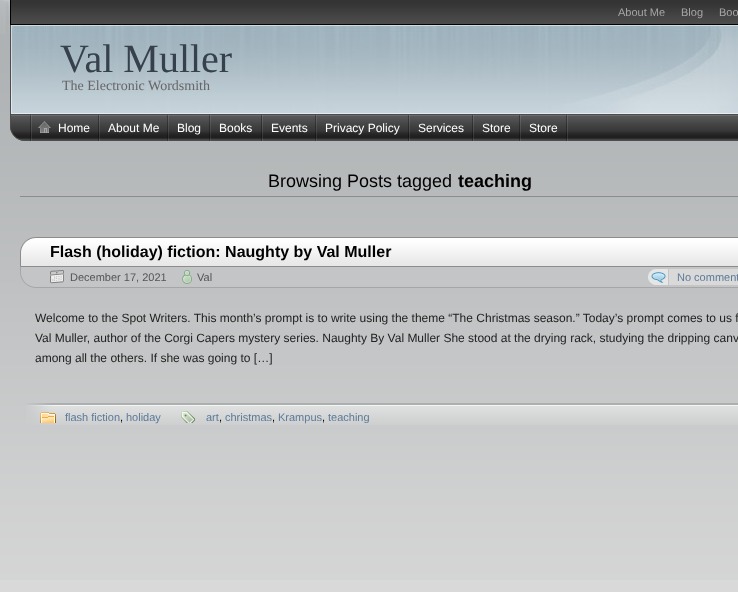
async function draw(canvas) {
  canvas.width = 738
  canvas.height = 592
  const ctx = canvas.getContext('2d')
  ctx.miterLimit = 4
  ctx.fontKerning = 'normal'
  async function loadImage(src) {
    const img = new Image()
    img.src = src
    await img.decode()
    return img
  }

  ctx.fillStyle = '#d9d9d9'
  ctx.fillRect(0, 0, 738, 592)
  ctx.drawImage(await loadImage('image0.png'), 0, 0, 738, 580)
  ctx.drawImage(await loadImage('image1.png'), 0, 0, 10, 34)
  ctx.drawImage(await loadImage('image2.png'), 10, 0, 728, 25)
  ctx.font = '11px Liberation Sans'
  ctx.fillStyle = '#a6a6a6'
  ctx.fillText('About Me', 618, 16)
  ctx.fillText('Blog', 681, 16)
  ctx.fillText('Boo', 719, 16)
  ctx.drawImage(await loadImage('image3.png'), 10, 25, 728, 89)
  ctx.font = '40px Liberation Serif'
  ctx.fillStyle = '#36414d'
  ctx.fillText('Val Muller', 60, 72)
  ctx.font = '14px Liberation Serif'
  ctx.fillStyle = '#666'
  ctx.fillText('The Electronic Wordsmith', 62, 90)
  ctx.drawImage(await loadImage('image4.png'), 10, 114, 728, 27)
  ctx.fillStyle = '#4d4d4d'
  ctx.fillRect(11, 114, 727, 1)
  ctx.drawImage(await loadImage('image5.png'), 30, 115, 2, 26)
  ctx.drawImage(await loadImage('image5.png'), 98, 115, 2, 26)
  ctx.drawImage(await loadImage('image6.png'), 38, 121, 13, 12)
  ctx.font = '12px Liberation Sans'
  ctx.fillStyle = '#fff'
  ctx.fillText('Home', 58, 132)
  ctx.drawImage(await loadImage('image7.png'), 167, 115, 2, 26)
  ctx.fillText('About Me', 108, 132)
  ctx.drawImage(await loadImage('image7.png'), 209, 115, 2, 26)
  ctx.fillText('Blog', 177, 132)
  ctx.drawImage(await loadImage('image5.png'), 261, 115, 2, 26)
  ctx.fillText('Books', 219, 132)
  ctx.drawImage(await loadImage('image7.png'), 315, 115, 2, 26)
  ctx.fillText('Events', 271, 132)
  ctx.drawImage(await loadImage('image5.png'), 408, 115, 2, 26)
  ctx.fillText('Privacy Policy', 325, 132)
  ctx.drawImage(await loadImage('image5.png'), 472, 115, 2, 26)
  ctx.fillText('Services', 418, 132)
  ctx.drawImage(await loadImage('image5.png'), 519, 115, 2, 26)
  ctx.fillText('Store', 482, 132)
  ctx.drawImage(await loadImage('image5.png'), 566, 115, 2, 26)
  ctx.fillText('Store', 529, 132)
  ctx.fillStyle = '#8c8c8c'
  ctx.fillRect(20, 196, 718, 1)
  ctx.font = '18px Liberation Sans'
  ctx.fillStyle = '#000'
  ctx.fillText('Browsing Posts tagged', 268, 187)
  ctx.font = 'bold 18px Liberation Sans'
  ctx.fillText('teaching', 458, 187)
  ctx.drawImage(await loadImage('image8.png'), 20, 237, 718, 29)
  ctx.font = 'bold 16px Liberation Sans'
  ctx.fillText('Flash (holiday) fiction: Naughty by Val Muller', 50, 257)
  ctx.drawImage(await loadImage('image9.png'), 20, 266, 718, 22)
  ctx.drawImage(await loadImage('image10.png'), 50, 270, 14, 14)
  ctx.font = '11px Liberation Sans'
  ctx.fillStyle = '#555'
  ctx.fillText('December 17, 2021', 70, 281)
  ctx.drawImage(await loadImage('image11.png'), 182, 270, 10, 14)
  ctx.fillText('Val', 197, 281)
  ctx.drawImage(await loadImage('image12.png'), 648, 269, 20, 16)
  ctx.fillStyle = '#d9d9d9'
  ctx.fillRect(669, 269, 69, 16)
  ctx.fillStyle = '#5c7a99'
  ctx.fillText('No comment', 677, 281)
  ctx.font = '12px Liberation Sans'
  ctx.fillStyle = '#222'
  ctx.fillText('Welcome to the Spot Writers. This month’s prompt is to write using the theme “The Christmas season.” Today’s prompt comes to us f', 35, 322)
  ctx.fillText('Val Muller, author of the Corgi Capers mystery series. Naughty By Val Muller She stood at the drying rack, studying the dripping canv', 35, 342)
  ctx.fillText('among all the others. If she was going to […]', 35, 362)
  ctx.drawImage(await loadImage('image13.png'), 26, 403, 712, 22)
  ctx.drawImage(await loadImage('image14.png'), 40, 412, 16, 11)
  ctx.font = '11px Liberation Sans'
  ctx.fillStyle = '#5c7a99'
  ctx.fillText('flash fiction', 65, 421)
  ctx.fillStyle = '#000'
  ctx.fillText(',', 120, 421)
  ctx.fillStyle = '#5c7a99'
  ctx.fillText('holiday', 126, 421)
  ctx.drawImage(await loadImage('image15.png'), 181, 411, 15, 12)
  ctx.fillText('art', 206, 421)
  ctx.fillStyle = '#000'
  ctx.fillText(',', 219, 421)
  ctx.fillStyle = '#5c7a99'
  ctx.fillText('christmas', 225, 421)
  ctx.fillStyle = '#000'
  ctx.fillText(',', 272, 421)
  ctx.fillStyle = '#5c7a99'
  ctx.fillText('Krampus', 278, 421)
  ctx.fillStyle = '#000'
  ctx.fillText(',', 322, 421)
  ctx.save()
  ctx.beginPath()
  ctx.rect(40, 403, 570, 20)
  ctx.clip()
  ctx.fillStyle = '#5c7a99'
  ctx.fillText('teaching', 328, 421)
  ctx.restore()
}

draw(document.querySelector('canvas'))
